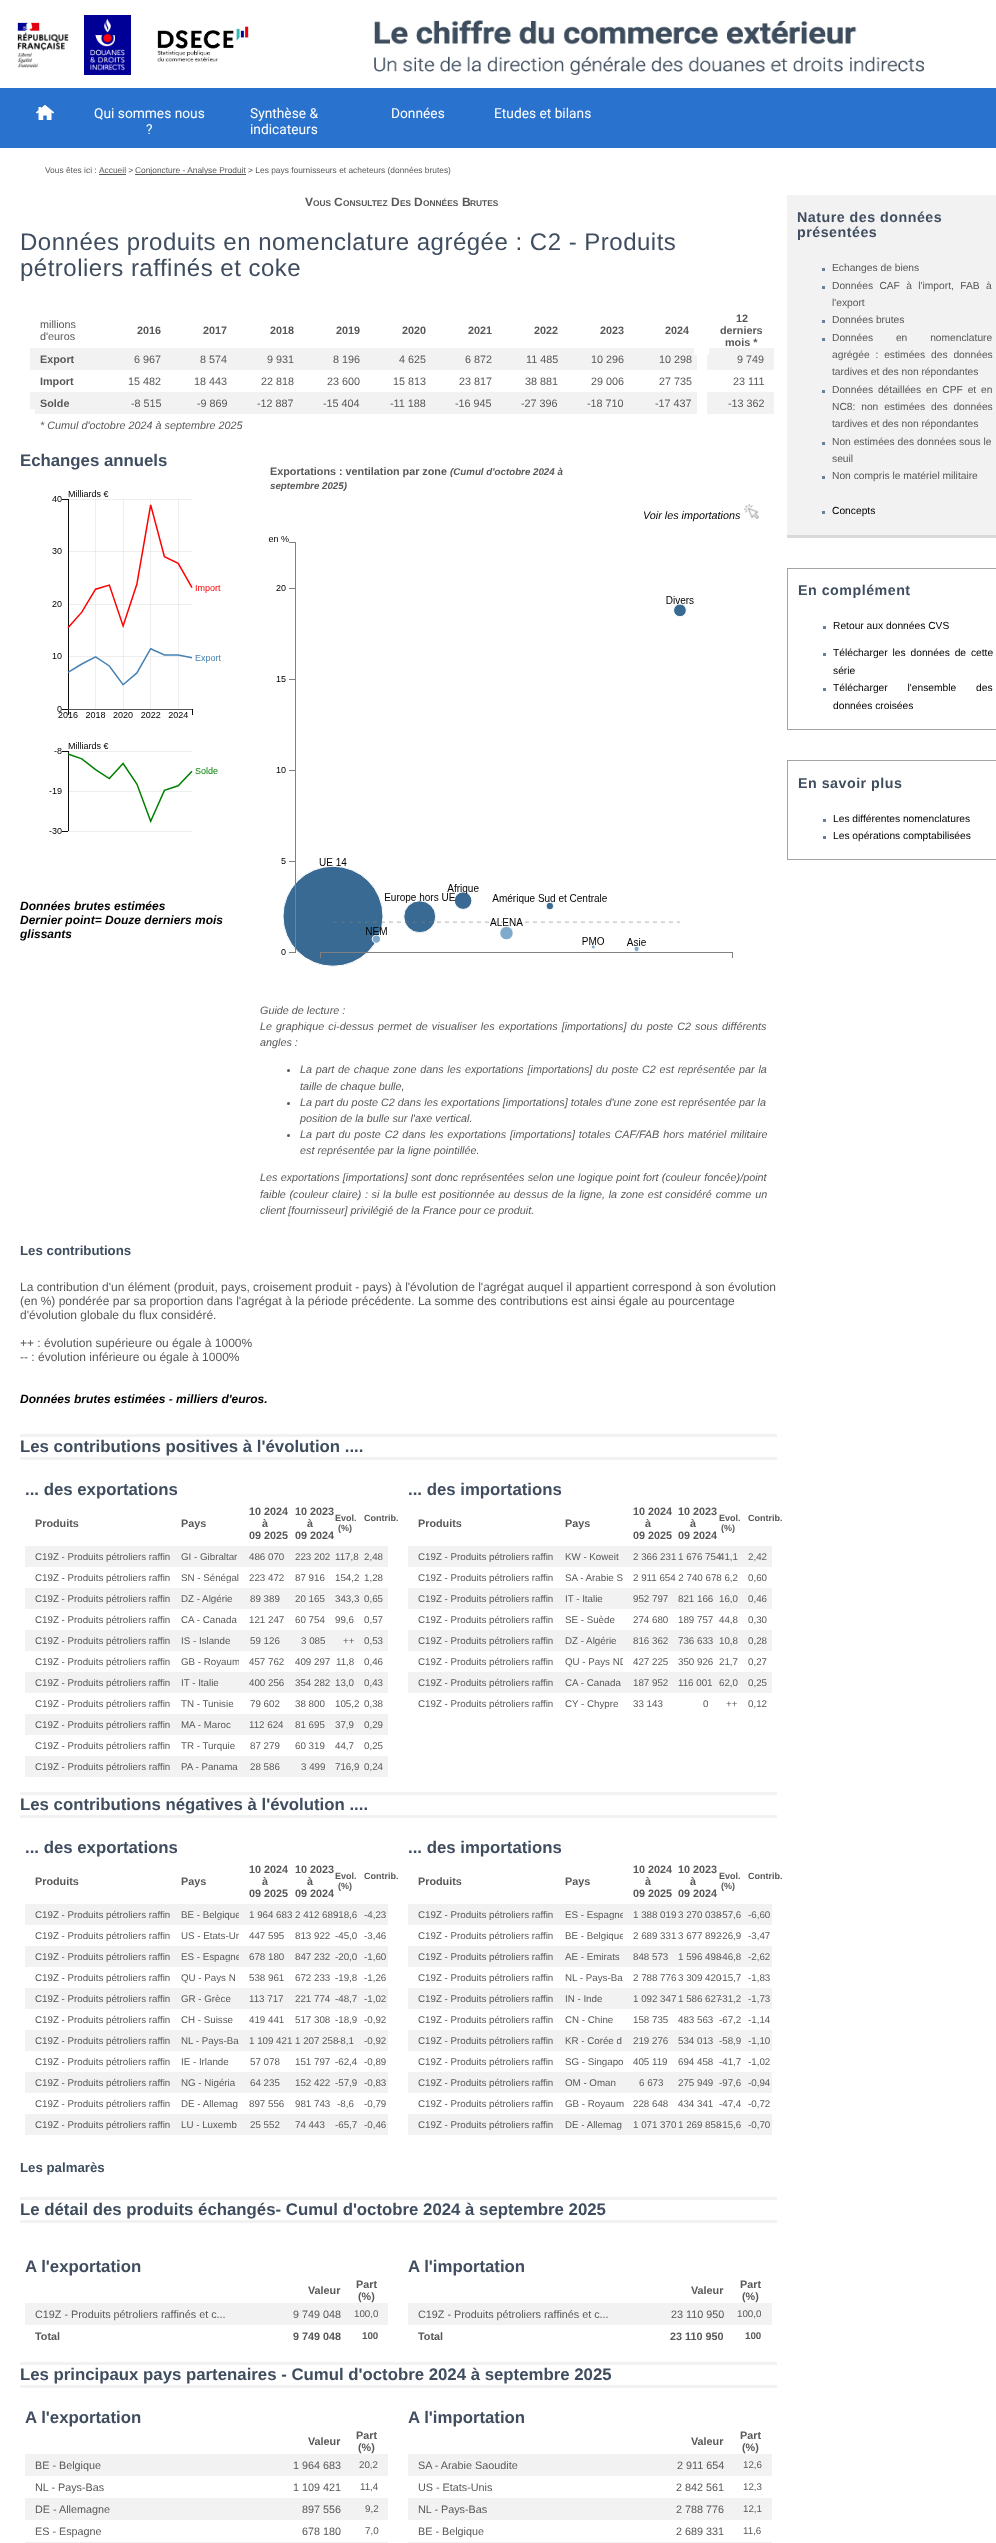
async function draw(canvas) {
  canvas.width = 996
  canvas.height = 2543
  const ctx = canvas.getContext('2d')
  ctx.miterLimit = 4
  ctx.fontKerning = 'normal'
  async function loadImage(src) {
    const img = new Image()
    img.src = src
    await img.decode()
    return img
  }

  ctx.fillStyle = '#fff'
  ctx.fillRect(0, 0, 996, 2543)
  ctx.drawImage(await loadImage('image0.png'), 17, 22, 52, 46)
  ctx.drawImage(await loadImage('image1.png'), 84, 15, 47, 60)
  ctx.drawImage(await loadImage('image2.png'), 157, 26, 92, 36)
  ctx.drawImage(await loadImage('image3.png'), 374, 20, 550, 55)
  ctx.fillStyle = '#2972ce'
  ctx.fillRect(0, 88, 996, 60)
  ctx.drawImage(await loadImage('image4.png'), 36, 105, 18, 15)
  ctx.font = '13.75px Roboto'
  ctx.fillStyle = '#fff'
  ctx.fillText('Qui sommes nous', 94, 118)
  ctx.fillText('?', 146, 134)
  ctx.fillText('Synthèse &', 250, 118)
  ctx.fillText('indicateurs', 250, 134)
  ctx.fillText('Données', 391, 118)
  ctx.fillText('Etudes et bilans', 494, 118)
  ctx.font = '8.4px Liberation Sans'
  ctx.fillStyle = '#585858'
  ctx.fillText('Vous êtes ici :', 45, 173)
  ctx.fillText('Accueil >', 99, 173)
  ctx.fillRect(99, 174, 27, 1)
  ctx.fillRect(135, 174, 111, 1)
  ctx.fillText('Conjoncture - Analyse Produit > Les pays fournisseurs et acheteurs (données brutes)', 135, 173)
  ctx.font = 'bold 12px Liberation Sans'
  ctx.fillText('V', 305, 206)
  ctx.font = 'bold 8.4px Liberation Sans'
  ctx.fillText('OUS', 313, 206)
  ctx.font = 'bold 12px Liberation Sans'
  ctx.fillText('C', 334, 206)
  ctx.font = 'bold 8.4px Liberation Sans'
  ctx.fillText('ONSULTEZ', 343, 206)
  ctx.font = 'bold 12px Liberation Sans'
  ctx.fillText('D', 391, 206)
  ctx.font = 'bold 8.4px Liberation Sans'
  ctx.fillText('ES', 400, 206)
  ctx.font = 'bold 12px Liberation Sans'
  ctx.fillText('D', 414, 206)
  ctx.font = 'bold 8.4px Liberation Sans'
  ctx.fillText('ONNÉES', 423, 206)
  ctx.font = 'bold 12px Liberation Sans'
  ctx.fillText('B', 462, 206)
  ctx.font = 'bold 8.4px Liberation Sans'
  ctx.fillText('RUTES', 470, 206)
  ctx.letterSpacing = '0.5px'
  ctx.font = '24px Liberation Sans'
  ctx.fillStyle = '#3f4d5f'
  ctx.fillText('Données produits en nomenclature agrégée : C2 - Produits', 20, 250)
  ctx.fillText('pétroliers raffinés et coke', 20, 276)
  ctx.letterSpacing = '0px'
  ctx.font = '10.8px Liberation Sans'
  ctx.fillStyle = '#585858'
  ctx.fillText('millions', 40, 328)
  ctx.fillText('d\'euros', 40, 340)
  ctx.font = 'bold 10.8px Liberation Sans'
  ctx.fillText('2016', 137, 334)
  ctx.fillText('2017', 203, 334)
  ctx.fillText('2018', 270, 334)
  ctx.fillText('2019', 336, 334)
  ctx.fillText('2020', 402, 334)
  ctx.fillText('2021', 468, 334)
  ctx.fillText('2022', 534, 334)
  ctx.fillText('2023', 600, 334)
  ctx.fillText('2024', 665, 334)
  ctx.fillStyle = '#f2f2f2'
  ctx.fillRect(30, 348, 744, 22)
  ctx.fillStyle = '#fff'
  ctx.fillRect(694, 348, 15, 7)
  ctx.fillStyle = '#585858'
  ctx.fillText('12', 736, 322)
  ctx.fillText('derniers', 720, 334)
  ctx.fillText('mois *', 725, 346)
  ctx.fillText('Export', 40, 363)
  ctx.font = '10.8px Liberation Sans'
  ctx.fillText('6 967', 134, 363)
  ctx.fillText('8 574', 200, 363)
  ctx.fillText('9 931', 267, 363)
  ctx.fillText('8 196', 333, 363)
  ctx.fillText('4 625', 399, 363)
  ctx.fillText('6 872', 465, 363)
  ctx.fillText('11 485', 526, 363)
  ctx.fillText('10 296', 591, 363)
  ctx.fillText('10 298', 659, 363)
  ctx.fillStyle = '#fff'
  ctx.fillRect(697, 355, 10, 15)
  ctx.fillStyle = '#585858'
  ctx.fillText('9 749', 737, 363)
  ctx.font = 'bold 10.8px Liberation Sans'
  ctx.fillText('Import', 40, 385)
  ctx.font = '10.8px Liberation Sans'
  ctx.fillText('15 482', 128, 385)
  ctx.fillText('18 443', 194, 385)
  ctx.fillText('22 818', 261, 385)
  ctx.fillText('23 600', 327, 385)
  ctx.fillText('15 813', 393, 385)
  ctx.fillText('23 817', 459, 385)
  ctx.fillText('38 881', 525, 385)
  ctx.fillText('29 006', 591, 385)
  ctx.fillText('27 735', 659, 385)
  ctx.fillText('23 111', 733, 385)
  ctx.fillStyle = '#f2f2f2'
  ctx.fillRect(30, 392, 744, 22)
  ctx.font = 'bold 10.8px Liberation Sans'
  ctx.fillStyle = '#585858'
  ctx.fillText('Solde', 40, 407)
  ctx.font = '10.8px Liberation Sans'
  ctx.fillText('-8 515', 131, 407)
  ctx.fillText('-9 869', 197, 407)
  ctx.fillText('-12 887', 257, 407)
  ctx.fillText('-15 404', 323, 407)
  ctx.fillText('-11 188', 390, 407)
  ctx.fillText('-16 945', 455, 407)
  ctx.fillText('-27 396', 521, 407)
  ctx.fillText('-18 710', 587, 407)
  ctx.fillText('-17 437', 655, 407)
  ctx.fillStyle = '#fff'
  ctx.fillRect(697, 392, 10, 22)
  ctx.fillStyle = '#585858'
  ctx.fillText('-13 362', 728, 407)
  ctx.fillStyle = '#fff'
  ctx.fillRect(30, 409, 5, 5)
  ctx.font = 'italic 10.8px Liberation Sans'
  ctx.fillStyle = '#585858'
  ctx.fillText('* Cumul d\'octobre 2024 à septembre 2025', 40, 429)
  ctx.font = 'bold 16.8px Liberation Sans'
  ctx.fillStyle = '#3f4d5f'
  ctx.fillText('Echanges annuels', 20, 466)
  ctx.drawImage(await loadImage('image5.png'), 49, 490, 172, 344)
  ctx.font = 'italic bold 12px Liberation Sans'
  ctx.fillStyle = '#000'
  ctx.fillText('Données brutes estimées', 20, 910)
  ctx.fillText('Dernier point= Douze derniers mois', 20, 924)
  ctx.fillText('glissants', 20, 938)
  ctx.font = 'bold 10.8px Liberation Sans'
  ctx.fillStyle = '#585858'
  ctx.fillText('Exportations : ventilation par zone', 270, 475)
  ctx.font = 'italic bold 9.75px Liberation Sans'
  ctx.fillText('(Cumul d\'octobre 2024 à', 450, 475)
  ctx.fillText('septembre 2025)', 270, 489)
  ctx.font = 'italic 10.8px Liberation Sans'
  ctx.fillStyle = '#000'
  ctx.fillText('Voir les importations', 643, 519)
  ctx.drawImage(await loadImage('image6.png'), 744, 504, 15, 15)
  ctx.drawImage(await loadImage('image7.png'), 268, 536, 465, 431)
  ctx.fillStyle = '#585858'
  ctx.fillText('Guide de lecture :', 260, 1014)
  ctx.wordSpacing = '1.1px'
  ctx.fillText('Le graphique ci-dessus permet de visualiser les exportations [importations] du poste C2 sous différents', 260, 1030)
  ctx.wordSpacing = '0px'
  ctx.fillText('angles :', 260, 1046)
  ctx.beginPath()
  ctx.arc(288.5, 1070.5, 1.5, 0, 2 * Math.PI)
  ctx.fill()
  ctx.wordSpacing = '0.75px'
  ctx.fillText('La part de chaque zone dans les exportations [importations] du poste C2 est représentée par la', 300, 1073)
  ctx.wordSpacing = '0px'
  ctx.fillText('taille de chaque bulle,', 300, 1090)
  ctx.beginPath()
  ctx.arc(288.5, 1103.5, 1.5, 0, 2 * Math.PI)
  ctx.fill()
  ctx.fillText('La part du poste C2 dans les exportations [importations] totales d\'une zone est représentée par la', 300, 1106)
  ctx.fillText('position de la bulle sur l\'axe vertical.', 300, 1122)
  ctx.beginPath()
  ctx.arc(288.5, 1135.5, 1.5, 0, 2 * Math.PI)
  ctx.fill()
  ctx.wordSpacing = '0.9px'
  ctx.fillText('La part du poste C2 dans les exportations [importations] totales CAF/FAB hors matériel militaire', 300, 1138)
  ctx.wordSpacing = '0px'
  ctx.fillText('est représentée par la ligne pointillée.', 300, 1154)
  ctx.wordSpacing = '0.3px'
  ctx.fillText('Les exportations [importations] sont donc représentées selon une logique point fort (couleur foncée)/point', 260, 1181)
  ctx.wordSpacing = '0.6px'
  ctx.fillText('faible (couleur claire) : si la bulle est positionnée au dessus de la ligne, la zone est', 260, 1198)
  ctx.wordSpacing = '1px'
  ctx.fillText('considéré comme un', 665, 1198)
  ctx.wordSpacing = '0px'
  ctx.fillText('client [fournisseur] privilégié de la France pour ce produit.', 260, 1214)
  ctx.font = 'bold 13.25px Liberation Sans'
  ctx.fillStyle = '#3f4d5f'
  ctx.fillText('Les contributions', 20, 1255)
  ctx.font = '12px Liberation Sans'
  ctx.fillStyle = '#585858'
  ctx.fillText('La contribution d\'un élément (produit, pays, croisement produit - pays) à l\'évolution de l\'agrégat auquel il appartient correspond à son évolution', 20, 1291)
  ctx.fillText('(en %) pondérée par sa proportion dans l\'agrégat à la période précédente. La somme des contributions est ainsi égale au pourcentage', 20, 1305)
  ctx.fillText('d\'évolution globale du flux considéré.', 20, 1319)
  ctx.fillText('++ : évolution supérieure ou égale à 1000%', 20, 1347)
  ctx.fillText('-- : évolution inférieure ou égale à 1000%', 20, 1361)
  ctx.font = 'italic bold 12px Liberation Sans'
  ctx.fillStyle = '#000'
  ctx.fillText('Données brutes estimées - milliers d\'euros.', 20, 1403)
  ctx.fillStyle = '#f2f2f2'
  ctx.fillRect(20, 1434, 757, 3)
  ctx.fillRect(20, 1457, 757, 3)
  ctx.font = 'bold 16.8px Liberation Sans'
  ctx.fillStyle = '#3f4d5f'
  ctx.fillText('Les contributions positives à l\'évolution ....', 20, 1452)
  ctx.fillText('... des exportations', 25, 1495)
  ctx.font = 'bold 10.8px Liberation Sans'
  ctx.fillStyle = '#585858'
  ctx.fillText('10 2024', 249, 1515)
  ctx.fillText('à', 262, 1527)
  ctx.fillText('09 2025', 249, 1539)
  ctx.fillText('10 2023', 295, 1515)
  ctx.fillText('à', 307, 1527)
  ctx.fillText('09 2024', 295, 1539)
  ctx.font = 'bold 9px Liberation Sans'
  ctx.fillText('Evol.', 335, 1521)
  ctx.fillText('(%)', 338, 1531)
  ctx.fillText('Contrib.', 364, 1521)
  ctx.font = 'bold 10.8px Liberation Sans'
  ctx.fillText('Produits', 35, 1527)
  ctx.fillText('Pays', 181, 1527)
  ctx.fillStyle = '#f2f2f2'
  ctx.fillRect(25, 1546, 363, 21)
  ctx.font = '9.75px Liberation Sans'
  ctx.fillStyle = '#585858'
  ctx.fillText('C19Z - Produits pétroliers raffin', 35, 1560)
  ctx.fillText('GI - Gibraltar', 181, 1560)
  ctx.fillText('486 070', 249, 1560)
  ctx.fillText('223 202', 295, 1560)
  ctx.fillText('117,8', 335, 1560)
  ctx.fillText('2,48', 364, 1560)
  ctx.fillText('C19Z - Produits pétroliers raffin', 35, 1581)
  ctx.fillText('SN - Sénégal', 181, 1581)
  ctx.fillText('223 472', 249, 1581)
  ctx.fillText('87 916', 295, 1581)
  ctx.fillText('154,2', 335, 1581)
  ctx.fillText('1,28', 364, 1581)
  ctx.fillStyle = '#f2f2f2'
  ctx.fillRect(25, 1588, 363, 21)
  ctx.fillStyle = '#585858'
  ctx.fillText('C19Z - Produits pétroliers raffin', 35, 1602)
  ctx.fillText('DZ - Algérie', 181, 1602)
  ctx.fillText('89 389', 250, 1602)
  ctx.fillText('20 165', 295, 1602)
  ctx.fillText('343,3', 335, 1602)
  ctx.fillText('0,65', 364, 1602)
  ctx.fillText('C19Z - Produits pétroliers raffin', 35, 1623)
  ctx.fillText('CA - Canada', 181, 1623)
  ctx.fillText('121 247', 249, 1623)
  ctx.fillText('60 754', 295, 1623)
  ctx.fillText('99,6', 335, 1623)
  ctx.fillText('0,57', 364, 1623)
  ctx.fillStyle = '#f2f2f2'
  ctx.fillRect(25, 1630, 363, 21)
  ctx.fillStyle = '#585858'
  ctx.fillText('C19Z - Produits pétroliers raffin', 35, 1644)
  ctx.fillText('IS - Islande', 181, 1644)
  ctx.fillText('59 126', 250, 1644)
  ctx.fillText('3 085', 301, 1644)
  ctx.fillText('++', 343, 1644)
  ctx.fillText('0,53', 364, 1644)
  ctx.fillText('C19Z - Produits pétroliers raffin', 35, 1665)
  ctx.save()
  ctx.beginPath()
  ctx.rect(171, 1651, 68, 21)
  ctx.clip()
  ctx.fillText('GB - Royaum', 181, 1665)
  ctx.restore()
  ctx.fillText('457 762', 249, 1665)
  ctx.fillText('409 297', 295, 1665)
  ctx.fillText('11,8', 336, 1665)
  ctx.fillText('0,46', 364, 1665)
  ctx.fillStyle = '#f2f2f2'
  ctx.fillRect(25, 1672, 363, 21)
  ctx.fillStyle = '#585858'
  ctx.fillText('C19Z - Produits pétroliers raffin', 35, 1686)
  ctx.fillText('IT - Italie', 181, 1686)
  ctx.fillText('400 256', 249, 1686)
  ctx.fillText('354 282', 295, 1686)
  ctx.fillText('13,0', 335, 1686)
  ctx.fillText('0,43', 364, 1686)
  ctx.fillText('C19Z - Produits pétroliers raffin', 35, 1707)
  ctx.fillText('TN - Tunisie', 181, 1707)
  ctx.fillText('79 602', 250, 1707)
  ctx.fillText('38 800', 295, 1707)
  ctx.fillText('105,2', 335, 1707)
  ctx.fillText('0,38', 364, 1707)
  ctx.fillStyle = '#f2f2f2'
  ctx.fillRect(25, 1714, 363, 21)
  ctx.fillStyle = '#585858'
  ctx.fillText('C19Z - Produits pétroliers raffin', 35, 1728)
  ctx.fillText('MA - Maroc', 181, 1728)
  ctx.fillText('112 624', 249, 1728)
  ctx.fillText('81 695', 295, 1728)
  ctx.fillText('37,9', 335, 1728)
  ctx.fillText('0,29', 364, 1728)
  ctx.fillText('C19Z - Produits pétroliers raffin', 35, 1749)
  ctx.fillText('TR - Turquie', 181, 1749)
  ctx.fillText('87 279', 250, 1749)
  ctx.fillText('60 319', 295, 1749)
  ctx.fillText('44,7', 335, 1749)
  ctx.fillText('0,25', 364, 1749)
  ctx.fillStyle = '#f2f2f2'
  ctx.fillRect(25, 1756, 363, 21)
  ctx.fillStyle = '#585858'
  ctx.fillText('C19Z - Produits pétroliers raffin', 35, 1770)
  ctx.fillText('PA - Panama', 181, 1770)
  ctx.fillText('28 586', 250, 1770)
  ctx.fillText('3 499', 301, 1770)
  ctx.fillText('716,9', 335, 1770)
  ctx.fillText('0,24', 364, 1770)
  ctx.font = 'bold 16.8px Liberation Sans'
  ctx.fillStyle = '#3f4d5f'
  ctx.fillText('... des importations', 408, 1495)
  ctx.font = 'bold 10.8px Liberation Sans'
  ctx.fillStyle = '#585858'
  ctx.fillText('10 2024', 633, 1515)
  ctx.fillText('à', 645, 1527)
  ctx.fillText('09 2025', 633, 1539)
  ctx.fillText('10 2023', 678, 1515)
  ctx.fillText('à', 690, 1527)
  ctx.fillText('09 2024', 678, 1539)
  ctx.font = 'bold 9px Liberation Sans'
  ctx.fillText('Evol.', 719, 1521)
  ctx.fillText('(%)', 721, 1531)
  ctx.fillText('Contrib.', 748, 1521)
  ctx.font = 'bold 10.8px Liberation Sans'
  ctx.fillText('Produits', 418, 1527)
  ctx.fillText('Pays', 565, 1527)
  ctx.fillStyle = '#f2f2f2'
  ctx.fillRect(408, 1546, 364, 21)
  ctx.font = '9.75px Liberation Sans'
  ctx.fillStyle = '#585858'
  ctx.fillText('C19Z - Produits pétroliers raffin', 418, 1560)
  ctx.fillText('KW - Koweit', 565, 1560)
  ctx.fillText('2 366 231', 633, 1560)
  ctx.fillText('1 676 754', 678, 1560)
  ctx.fillText('41,1', 719, 1560)
  ctx.fillText('2,42', 748, 1560)
  ctx.fillText('C19Z - Produits pétroliers raffin', 418, 1581)
  ctx.fillText('SA - Arabie S', 565, 1581)
  ctx.fillText('2 911 654 2 740 678 6,2', 633, 1581)
  ctx.fillText('0,60', 748, 1581)
  ctx.fillStyle = '#f2f2f2'
  ctx.fillRect(408, 1588, 364, 21)
  ctx.fillStyle = '#585858'
  ctx.fillText('C19Z - Produits pétroliers raffin', 418, 1602)
  ctx.fillText('IT - Italie', 565, 1602)
  ctx.fillText('952 797', 633, 1602)
  ctx.fillText('821 166', 678, 1602)
  ctx.fillText('16,0', 719, 1602)
  ctx.fillText('0,46', 748, 1602)
  ctx.fillText('C19Z - Produits pétroliers raffin', 418, 1623)
  ctx.fillText('SE - Suède', 565, 1623)
  ctx.fillText('274 680', 633, 1623)
  ctx.fillText('189 757', 678, 1623)
  ctx.fillText('44,8', 719, 1623)
  ctx.fillText('0,30', 748, 1623)
  ctx.fillStyle = '#f2f2f2'
  ctx.fillRect(408, 1630, 364, 21)
  ctx.fillStyle = '#585858'
  ctx.fillText('C19Z - Produits pétroliers raffin', 418, 1644)
  ctx.fillText('DZ - Algérie', 565, 1644)
  ctx.fillText('816 362', 633, 1644)
  ctx.fillText('736 633', 678, 1644)
  ctx.fillText('10,8', 719, 1644)
  ctx.fillText('0,28', 748, 1644)
  ctx.fillText('C19Z - Produits pétroliers raffin', 418, 1665)
  ctx.save()
  ctx.beginPath()
  ctx.rect(555, 1651, 68, 21)
  ctx.clip()
  ctx.fillText('QU - Pays ND', 565, 1665)
  ctx.restore()
  ctx.fillText('427 225', 633, 1665)
  ctx.fillText('350 926', 678, 1665)
  ctx.fillText('21,7', 719, 1665)
  ctx.fillText('0,27', 748, 1665)
  ctx.fillStyle = '#f2f2f2'
  ctx.fillRect(408, 1672, 364, 21)
  ctx.fillStyle = '#585858'
  ctx.fillText('C19Z - Produits pétroliers raffin', 418, 1686)
  ctx.fillText('CA - Canada', 565, 1686)
  ctx.fillText('187 952', 633, 1686)
  ctx.fillText('116 001', 678, 1686)
  ctx.fillText('62,0', 719, 1686)
  ctx.fillText('0,25', 748, 1686)
  ctx.fillText('C19Z - Produits pétroliers raffin', 418, 1707)
  ctx.fillText('CY - Chypre', 565, 1707)
  ctx.fillText('33 143', 633, 1707)
  ctx.fillText('0', 703, 1707)
  ctx.fillText('++', 726, 1707)
  ctx.fillText('0,12', 748, 1707)
  ctx.fillStyle = '#f2f2f2'
  ctx.fillRect(20, 1792, 757, 3)
  ctx.fillRect(20, 1815, 757, 3)
  ctx.font = 'bold 16.8px Liberation Sans'
  ctx.fillStyle = '#3f4d5f'
  ctx.fillText('Les contributions négatives à l\'évolution ....', 20, 1810)
  ctx.fillText('... des exportations', 25, 1853)
  ctx.font = 'bold 10.8px Liberation Sans'
  ctx.fillStyle = '#585858'
  ctx.fillText('10 2024', 249, 1873)
  ctx.fillText('à', 262, 1885)
  ctx.fillText('09 2025', 249, 1897)
  ctx.fillText('10 2023', 295, 1873)
  ctx.fillText('à', 307, 1885)
  ctx.fillText('09 2024', 295, 1897)
  ctx.font = 'bold 9px Liberation Sans'
  ctx.fillText('Evol.', 335, 1879)
  ctx.fillText('(%)', 338, 1889)
  ctx.fillText('Contrib.', 364, 1879)
  ctx.font = 'bold 10.8px Liberation Sans'
  ctx.fillText('Produits', 35, 1885)
  ctx.fillText('Pays', 181, 1885)
  ctx.fillStyle = '#f2f2f2'
  ctx.fillRect(25, 1904, 363, 21)
  ctx.font = '9.75px Liberation Sans'
  ctx.fillStyle = '#585858'
  ctx.fillText('C19Z - Produits pétroliers raffin', 35, 1918)
  ctx.save()
  ctx.beginPath()
  ctx.rect(171, 1904, 68, 21)
  ctx.clip()
  ctx.fillText('BE - Belgique', 181, 1918)
  ctx.restore()
  ctx.fillText('1 964 683', 249, 1918)
  ctx.fillText('2 412 689', 295, 1918)
  ctx.fillText('-18,6', 335, 1918)
  ctx.fillText('-4,23', 364, 1918)
  ctx.fillText('C19Z - Produits pétroliers raffin', 35, 1939)
  ctx.save()
  ctx.beginPath()
  ctx.rect(171, 1925, 68, 21)
  ctx.clip()
  ctx.fillText('US - Etats-Un', 181, 1939)
  ctx.restore()
  ctx.fillText('447 595', 249, 1939)
  ctx.fillText('813 922', 295, 1939)
  ctx.fillText('-45,0', 335, 1939)
  ctx.fillText('-3,46', 364, 1939)
  ctx.fillStyle = '#f2f2f2'
  ctx.fillRect(25, 1946, 363, 21)
  ctx.fillStyle = '#585858'
  ctx.fillText('C19Z - Produits pétroliers raffin', 35, 1960)
  ctx.save()
  ctx.beginPath()
  ctx.rect(171, 1946, 68, 21)
  ctx.clip()
  ctx.fillText('ES - Espagne', 181, 1960)
  ctx.restore()
  ctx.fillText('678 180', 249, 1960)
  ctx.fillText('847 232', 295, 1960)
  ctx.fillText('-20,0', 335, 1960)
  ctx.fillText('-1,60', 364, 1960)
  ctx.fillText('C19Z - Produits pétroliers raffin', 35, 1981)
  ctx.fillText('QU - Pays N', 181, 1981)
  ctx.fillText('538 961', 249, 1981)
  ctx.fillText('672 233', 295, 1981)
  ctx.fillText('-19,8', 335, 1981)
  ctx.fillText('-1,26', 364, 1981)
  ctx.fillStyle = '#f2f2f2'
  ctx.fillRect(25, 1988, 363, 21)
  ctx.fillStyle = '#585858'
  ctx.fillText('C19Z - Produits pétroliers raffin', 35, 2002)
  ctx.fillText('GR - Grèce', 181, 2002)
  ctx.fillText('113 717', 249, 2002)
  ctx.fillText('221 774', 295, 2002)
  ctx.fillText('-48,7', 335, 2002)
  ctx.fillText('-1,02', 364, 2002)
  ctx.fillText('C19Z - Produits pétroliers raffin', 35, 2023)
  ctx.fillText('CH - Suisse', 181, 2023)
  ctx.fillText('419 441', 249, 2023)
  ctx.fillText('517 308', 295, 2023)
  ctx.fillText('-18,9', 335, 2023)
  ctx.fillText('-0,92', 364, 2023)
  ctx.fillStyle = '#f2f2f2'
  ctx.fillRect(25, 2030, 363, 21)
  ctx.fillStyle = '#585858'
  ctx.fillText('C19Z - Produits pétroliers raffin', 35, 2044)
  ctx.fillText('NL - Pays-Ba', 181, 2044)
  ctx.fillText('1 109 421', 249, 2044)
  ctx.fillText('1 207 258', 295, 2044)
  ctx.fillText('-8,1', 337, 2044)
  ctx.fillText('-0,92', 364, 2044)
  ctx.fillText('C19Z - Produits pétroliers raffin', 35, 2065)
  ctx.fillText('IE - Irlande', 181, 2065)
  ctx.fillText('57 078', 250, 2065)
  ctx.fillText('151 797', 295, 2065)
  ctx.fillText('-62,4', 335, 2065)
  ctx.fillText('-0,89', 364, 2065)
  ctx.fillStyle = '#f2f2f2'
  ctx.fillRect(25, 2072, 363, 21)
  ctx.fillStyle = '#585858'
  ctx.fillText('C19Z - Produits pétroliers raffin', 35, 2086)
  ctx.fillText('NG - Nigéria', 181, 2086)
  ctx.fillText('64 235', 250, 2086)
  ctx.fillText('152 422', 295, 2086)
  ctx.fillText('-57,9', 335, 2086)
  ctx.fillText('-0,83', 364, 2086)
  ctx.fillText('C19Z - Produits pétroliers raffin', 35, 2107)
  ctx.fillText('DE - Allemag', 181, 2107)
  ctx.fillText('897 556', 249, 2107)
  ctx.fillText('981 743', 295, 2107)
  ctx.fillText('-8,6', 337, 2107)
  ctx.fillText('-0,79', 364, 2107)
  ctx.fillStyle = '#f2f2f2'
  ctx.fillRect(25, 2114, 363, 21)
  ctx.fillStyle = '#585858'
  ctx.fillText('C19Z - Produits pétroliers raffin', 35, 2128)
  ctx.fillText('LU - Luxemb', 181, 2128)
  ctx.fillText('25 552', 250, 2128)
  ctx.fillText('74 443', 295, 2128)
  ctx.fillText('-65,7', 335, 2128)
  ctx.fillText('-0,46', 364, 2128)
  ctx.font = 'bold 16.8px Liberation Sans'
  ctx.fillStyle = '#3f4d5f'
  ctx.fillText('... des importations', 408, 1853)
  ctx.font = 'bold 10.8px Liberation Sans'
  ctx.fillStyle = '#585858'
  ctx.fillText('10 2024', 633, 1873)
  ctx.fillText('à', 645, 1885)
  ctx.fillText('09 2025', 633, 1897)
  ctx.fillText('10 2023', 678, 1873)
  ctx.fillText('à', 690, 1885)
  ctx.fillText('09 2024', 678, 1897)
  ctx.font = 'bold 9px Liberation Sans'
  ctx.fillText('Evol.', 719, 1879)
  ctx.fillText('(%)', 721, 1889)
  ctx.fillText('Contrib.', 748, 1879)
  ctx.font = 'bold 10.8px Liberation Sans'
  ctx.fillText('Produits', 418, 1885)
  ctx.fillText('Pays', 565, 1885)
  ctx.fillStyle = '#f2f2f2'
  ctx.fillRect(408, 1904, 364, 21)
  ctx.font = '9.75px Liberation Sans'
  ctx.fillStyle = '#585858'
  ctx.fillText('C19Z - Produits pétroliers raffin', 418, 1918)
  ctx.save()
  ctx.beginPath()
  ctx.rect(555, 1904, 68, 21)
  ctx.clip()
  ctx.fillText('ES - Espagne', 565, 1918)
  ctx.restore()
  ctx.fillText('1 388 019', 633, 1918)
  ctx.fillText('3 270 038', 678, 1918)
  ctx.fillText('-57,6', 719, 1918)
  ctx.fillText('-6,60', 748, 1918)
  ctx.fillText('C19Z - Produits pétroliers raffin', 418, 1939)
  ctx.save()
  ctx.beginPath()
  ctx.rect(555, 1925, 68, 21)
  ctx.clip()
  ctx.fillText('BE - Belgique', 565, 1939)
  ctx.restore()
  ctx.fillText('2 689 331', 633, 1939)
  ctx.fillText('3 677 892', 678, 1939)
  ctx.fillText('-26,9', 719, 1939)
  ctx.fillText('-3,47', 748, 1939)
  ctx.fillStyle = '#f2f2f2'
  ctx.fillRect(408, 1946, 364, 21)
  ctx.fillStyle = '#585858'
  ctx.fillText('C19Z - Produits pétroliers raffin', 418, 1960)
  ctx.fillText('AE - Emirats', 565, 1960)
  ctx.fillText('848 573', 633, 1960)
  ctx.fillText('1 596 498', 678, 1960)
  ctx.fillText('-46,8', 719, 1960)
  ctx.fillText('-2,62', 748, 1960)
  ctx.fillText('C19Z - Produits pétroliers raffin', 418, 1981)
  ctx.fillText('NL - Pays-Ba', 565, 1981)
  ctx.fillText('2 788 776', 633, 1981)
  ctx.fillText('3 309 420', 678, 1981)
  ctx.fillText('-15,7', 719, 1981)
  ctx.fillText('-1,83', 748, 1981)
  ctx.fillStyle = '#f2f2f2'
  ctx.fillRect(408, 1988, 364, 21)
  ctx.fillStyle = '#585858'
  ctx.fillText('C19Z - Produits pétroliers raffin', 418, 2002)
  ctx.fillText('IN - Inde', 565, 2002)
  ctx.fillText('1 092 347', 633, 2002)
  ctx.fillText('1 586 627', 678, 2002)
  ctx.fillText('-31,2', 719, 2002)
  ctx.fillText('-1,73', 748, 2002)
  ctx.fillText('C19Z - Produits pétroliers raffin', 418, 2023)
  ctx.fillText('CN - Chine', 565, 2023)
  ctx.fillText('158 735', 633, 2023)
  ctx.fillText('483 563', 678, 2023)
  ctx.fillText('-67,2', 719, 2023)
  ctx.fillText('-1,14', 748, 2023)
  ctx.fillStyle = '#f2f2f2'
  ctx.fillRect(408, 2030, 364, 21)
  ctx.fillStyle = '#585858'
  ctx.fillText('C19Z - Produits pétroliers raffin', 418, 2044)
  ctx.fillText('KR - Corée d', 565, 2044)
  ctx.fillText('219 276', 633, 2044)
  ctx.fillText('534 013', 678, 2044)
  ctx.fillText('-58,9', 719, 2044)
  ctx.fillText('-1,10', 748, 2044)
  ctx.fillText('C19Z - Produits pétroliers raffin', 418, 2065)
  ctx.fillText('SG - Singapo', 565, 2065)
  ctx.fillText('405 119', 633, 2065)
  ctx.fillText('694 458', 678, 2065)
  ctx.fillText('-41,7', 719, 2065)
  ctx.fillText('-1,02', 748, 2065)
  ctx.fillStyle = '#f2f2f2'
  ctx.fillRect(408, 2072, 364, 21)
  ctx.fillStyle = '#585858'
  ctx.fillText('C19Z - Produits pétroliers raffin', 418, 2086)
  ctx.fillText('OM - Oman', 565, 2086)
  ctx.fillText('6 673', 639, 2086)
  ctx.fillText('275 949', 678, 2086)
  ctx.fillText('-97,6', 719, 2086)
  ctx.fillText('-0,94', 748, 2086)
  ctx.fillText('C19Z - Produits pétroliers raffin', 418, 2107)
  ctx.fillText('GB - Royaum', 565, 2107)
  ctx.fillText('228 648', 633, 2107)
  ctx.fillText('434 341', 678, 2107)
  ctx.fillText('-47,4', 719, 2107)
  ctx.fillText('-0,72', 748, 2107)
  ctx.fillStyle = '#f2f2f2'
  ctx.fillRect(408, 2114, 364, 21)
  ctx.fillStyle = '#585858'
  ctx.fillText('C19Z - Produits pétroliers raffin', 418, 2128)
  ctx.fillText('DE - Allemag', 565, 2128)
  ctx.fillText('1 071 370', 633, 2128)
  ctx.fillText('1 269 858', 678, 2128)
  ctx.fillText('-15,6', 719, 2128)
  ctx.fillText('-0,70', 748, 2128)
  ctx.font = 'bold 13.25px Liberation Sans'
  ctx.fillStyle = '#3f4d5f'
  ctx.fillText('Les palmarès', 20, 2172)
  ctx.fillStyle = '#f2f2f2'
  ctx.fillRect(20, 2197, 757, 3)
  ctx.fillRect(20, 2220, 757, 3)
  ctx.font = 'bold 16.8px Liberation Sans'
  ctx.fillStyle = '#3f4d5f'
  ctx.fillText('Le détail des produits échangés- Cumul d\'octobre 2024 à septembre 2025', 20, 2215)
  ctx.fillText('A l\'exportation', 25, 2272)
  ctx.font = 'bold 10.8px Liberation Sans'
  ctx.fillStyle = '#585858'
  ctx.fillText('Valeur', 308, 2294)
  ctx.fillText('Part', 356, 2288)
  ctx.fillText('(%)', 358, 2300)
  ctx.fillStyle = '#f2f2f2'
  ctx.fillRect(25, 2303, 363, 22)
  ctx.font = '10.8px Liberation Sans'
  ctx.fillStyle = '#585858'
  ctx.fillText('C19Z - Produits pétroliers raffinés et c...', 35, 2318)
  ctx.fillText('9 749 048', 293, 2318)
  ctx.font = '9.75px Liberation Sans'
  ctx.fillText('100,0', 354, 2317)
  ctx.font = 'bold 10.8px Liberation Sans'
  ctx.fillText('Total', 35, 2340)
  ctx.fillText('9 749 048', 293, 2340)
  ctx.font = 'bold 9.75px Liberation Sans'
  ctx.fillText('100', 362, 2339)
  ctx.font = 'bold 16.8px Liberation Sans'
  ctx.fillStyle = '#3f4d5f'
  ctx.fillText('A l\'importation', 408, 2272)
  ctx.font = 'bold 10.8px Liberation Sans'
  ctx.fillStyle = '#585858'
  ctx.fillText('Valeur', 691, 2294)
  ctx.fillText('Part', 740, 2288)
  ctx.fillText('(%)', 742, 2300)
  ctx.fillStyle = '#f2f2f2'
  ctx.fillRect(408, 2303, 364, 22)
  ctx.font = '10.8px Liberation Sans'
  ctx.fillStyle = '#585858'
  ctx.fillText('C19Z - Produits pétroliers raffinés et c...', 418, 2318)
  ctx.fillText('23 110 950', 671, 2318)
  ctx.font = '9.75px Liberation Sans'
  ctx.fillText('100,0', 737, 2317)
  ctx.font = 'bold 10.8px Liberation Sans'
  ctx.fillText('Total', 418, 2340)
  ctx.fillText('23 110 950', 670, 2340)
  ctx.font = 'bold 9.75px Liberation Sans'
  ctx.fillText('100', 745, 2339)
  ctx.fillStyle = '#f2f2f2'
  ctx.fillRect(20, 2362, 757, 3)
  ctx.fillRect(20, 2385, 757, 3)
  ctx.font = 'bold 16.8px Liberation Sans'
  ctx.fillStyle = '#3f4d5f'
  ctx.fillText('Les principaux pays partenaires - Cumul d\'octobre 2024 à septembre 2025', 20, 2380)
  ctx.fillText('A l\'exportation', 25, 2423)
  ctx.font = 'bold 10.8px Liberation Sans'
  ctx.fillStyle = '#585858'
  ctx.fillText('Valeur', 308, 2445)
  ctx.fillText('Part', 356, 2439)
  ctx.fillText('(%)', 358, 2451)
  ctx.fillStyle = '#f2f2f2'
  ctx.fillRect(25, 2454, 363, 22)
  ctx.font = '10.8px Liberation Sans'
  ctx.fillStyle = '#585858'
  ctx.fillText('BE - Belgique', 35, 2469)
  ctx.fillText('1 964 683', 293, 2469)
  ctx.font = '9.75px Liberation Sans'
  ctx.fillText('20,2', 359, 2468)
  ctx.font = '10.8px Liberation Sans'
  ctx.fillText('NL - Pays-Bas', 35, 2491)
  ctx.fillText('1 109 421', 293, 2491)
  ctx.font = '9.75px Liberation Sans'
  ctx.fillText('11,4', 360, 2490)
  ctx.fillStyle = '#f2f2f2'
  ctx.fillRect(25, 2498, 363, 22)
  ctx.font = '10.8px Liberation Sans'
  ctx.fillStyle = '#585858'
  ctx.fillText('DE - Allemagne', 35, 2513)
  ctx.fillText('897 556', 302, 2513)
  ctx.font = '9.75px Liberation Sans'
  ctx.fillText('9,2', 365, 2512)
  ctx.font = '10.8px Liberation Sans'
  ctx.fillText('ES - Espagne', 35, 2535)
  ctx.fillText('678 180', 302, 2535)
  ctx.font = '9.75px Liberation Sans'
  ctx.fillText('7,0', 365, 2534)
  ctx.fillStyle = '#f2f2f2'
  ctx.fillRect(25, 2542, 363, 1)
  ctx.font = 'bold 16.8px Liberation Sans'
  ctx.fillStyle = '#3f4d5f'
  ctx.fillText('A l\'importation', 408, 2423)
  ctx.font = 'bold 10.8px Liberation Sans'
  ctx.fillStyle = '#585858'
  ctx.fillText('Valeur', 691, 2445)
  ctx.fillText('Part', 740, 2439)
  ctx.fillText('(%)', 742, 2451)
  ctx.fillStyle = '#f2f2f2'
  ctx.fillRect(408, 2454, 364, 22)
  ctx.font = '10.8px Liberation Sans'
  ctx.fillStyle = '#585858'
  ctx.fillText('SA - Arabie Saoudite', 418, 2469)
  ctx.fillText('2 911 654', 677, 2469)
  ctx.font = '9.75px Liberation Sans'
  ctx.fillText('12,6', 743, 2468)
  ctx.font = '10.8px Liberation Sans'
  ctx.fillText('US - Etats-Unis', 418, 2491)
  ctx.fillText('2 842 561', 676, 2491)
  ctx.font = '9.75px Liberation Sans'
  ctx.fillText('12,3', 743, 2490)
  ctx.fillStyle = '#f2f2f2'
  ctx.fillRect(408, 2498, 364, 22)
  ctx.font = '10.8px Liberation Sans'
  ctx.fillStyle = '#585858'
  ctx.fillText('NL - Pays-Bas', 418, 2513)
  ctx.fillText('2 788 776', 676, 2513)
  ctx.font = '9.75px Liberation Sans'
  ctx.fillText('12,1', 743, 2512)
  ctx.font = '10.8px Liberation Sans'
  ctx.fillText('BE - Belgique', 418, 2535)
  ctx.fillText('2 689 331', 676, 2535)
  ctx.font = '9.75px Liberation Sans'
  ctx.fillText('11,6', 743, 2534)
  ctx.fillStyle = '#f2f2f2'
  ctx.fillRect(408, 2542, 364, 1)
  ctx.fillRect(787, 195, 209, 340)
  ctx.fillStyle = '#d9d9d9'
  ctx.fillRect(787, 535, 209, 3)
  ctx.letterSpacing = '0.5px'
  ctx.font = 'bold 14.25px Liberation Sans'
  ctx.fillStyle = '#3f4d5f'
  ctx.fillText('Nature des données', 797, 222)
  ctx.fillText('présentées', 797, 237)
  ctx.fillStyle = '#668099'
  ctx.fillRect(822, 268, 3, 3)
  ctx.letterSpacing = '0px'
  ctx.font = '10.25px Liberation Sans'
  ctx.fillStyle = '#585858'
  ctx.fillText('Echanges de biens', 832, 271)
  ctx.fillStyle = '#668099'
  ctx.fillRect(822, 286, 3, 3)
  ctx.wordSpacing = '3.5px'
  ctx.fillStyle = '#585858'
  ctx.fillText('Données CAF à l\'import, FAB à', 832, 289)
  ctx.wordSpacing = '0px'
  ctx.fillText('l\'export', 832, 306)
  ctx.fillStyle = '#668099'
  ctx.fillRect(822, 320, 3, 3)
  ctx.fillStyle = '#585858'
  ctx.fillText('Données brutes', 832, 323)
  ctx.fillStyle = '#668099'
  ctx.fillRect(822, 338, 3, 3)
  ctx.wordSpacing = '20px'
  ctx.fillStyle = '#585858'
  ctx.fillText('Données en nomenclature', 832, 341)
  ctx.wordSpacing = '3px'
  ctx.fillText('agrégée : estimées des données', 832, 358)
  ctx.wordSpacing = '0px'
  ctx.fillText('tardives et des non répondantes', 832, 375)
  ctx.fillStyle = '#668099'
  ctx.fillRect(822, 390, 3, 3)
  ctx.wordSpacing = '2px'
  ctx.fillStyle = '#585858'
  ctx.fillText('Données détaillées en CPF et en', 832, 393)
  ctx.wordSpacing = '3px'
  ctx.fillText('NC8: non estimées des données', 832, 410)
  ctx.wordSpacing = '0px'
  ctx.fillText('tardives et des non répondantes', 832, 427)
  ctx.fillStyle = '#668099'
  ctx.fillRect(822, 442, 3, 3)
  ctx.fillStyle = '#585858'
  ctx.fillText('Non estimées des données sous le', 832, 445)
  ctx.fillText('seuil', 832, 462)
  ctx.fillStyle = '#668099'
  ctx.fillRect(822, 476, 3, 3)
  ctx.fillStyle = '#585858'
  ctx.fillText('Non compris le matériel militaire', 832, 479)
  ctx.fillStyle = '#668099'
  ctx.fillRect(822, 511, 3, 3)
  ctx.fillStyle = '#000'
  ctx.fillText('Concepts', 832, 514)
  ctx.strokeStyle = '#a5a4a4'
  ctx.strokeRect(787.5, 568.5, 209, 161)
  ctx.letterSpacing = '0.5px'
  ctx.font = 'bold 14.25px Liberation Sans'
  ctx.fillStyle = '#3f4d5f'
  ctx.fillText('En complément', 798, 595)
  ctx.fillStyle = '#668099'
  ctx.fillRect(823, 626, 3, 3)
  ctx.letterSpacing = '0px'
  ctx.font = '10.25px Liberation Sans'
  ctx.fillStyle = '#000'
  ctx.fillText('Retour aux données CVS', 833, 629)
  ctx.fillStyle = '#668099'
  ctx.fillRect(823, 653, 3, 3)
  ctx.wordSpacing = '2px'
  ctx.fillStyle = '#000'
  ctx.fillText('Télécharger les données de cette', 833, 656)
  ctx.wordSpacing = '0px'
  ctx.fillText('série', 833, 674)
  ctx.fillStyle = '#668099'
  ctx.fillRect(823, 688, 3, 3)
  ctx.wordSpacing = '17px'
  ctx.fillStyle = '#000'
  ctx.fillText('Télécharger l\'ensemble des', 833, 691)
  ctx.wordSpacing = '0px'
  ctx.fillText('données croisées', 833, 709)
  ctx.strokeRect(787.5, 760.5, 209, 99)
  ctx.letterSpacing = '0.5px'
  ctx.font = 'bold 14.25px Liberation Sans'
  ctx.fillStyle = '#3f4d5f'
  ctx.fillText('En savoir plus', 798, 788)
  ctx.fillStyle = '#668099'
  ctx.fillRect(823, 819, 3, 3)
  ctx.letterSpacing = '0px'
  ctx.font = '10.25px Liberation Sans'
  ctx.fillStyle = '#000'
  ctx.fillText('Les différentes nomenclatures', 833, 822)
  ctx.fillStyle = '#668099'
  ctx.fillRect(823, 836, 3, 3)
  ctx.fillStyle = '#000'
  ctx.fillText('Les opérations comptabilisées', 833, 839)
}

draw(document.querySelector('canvas'))
